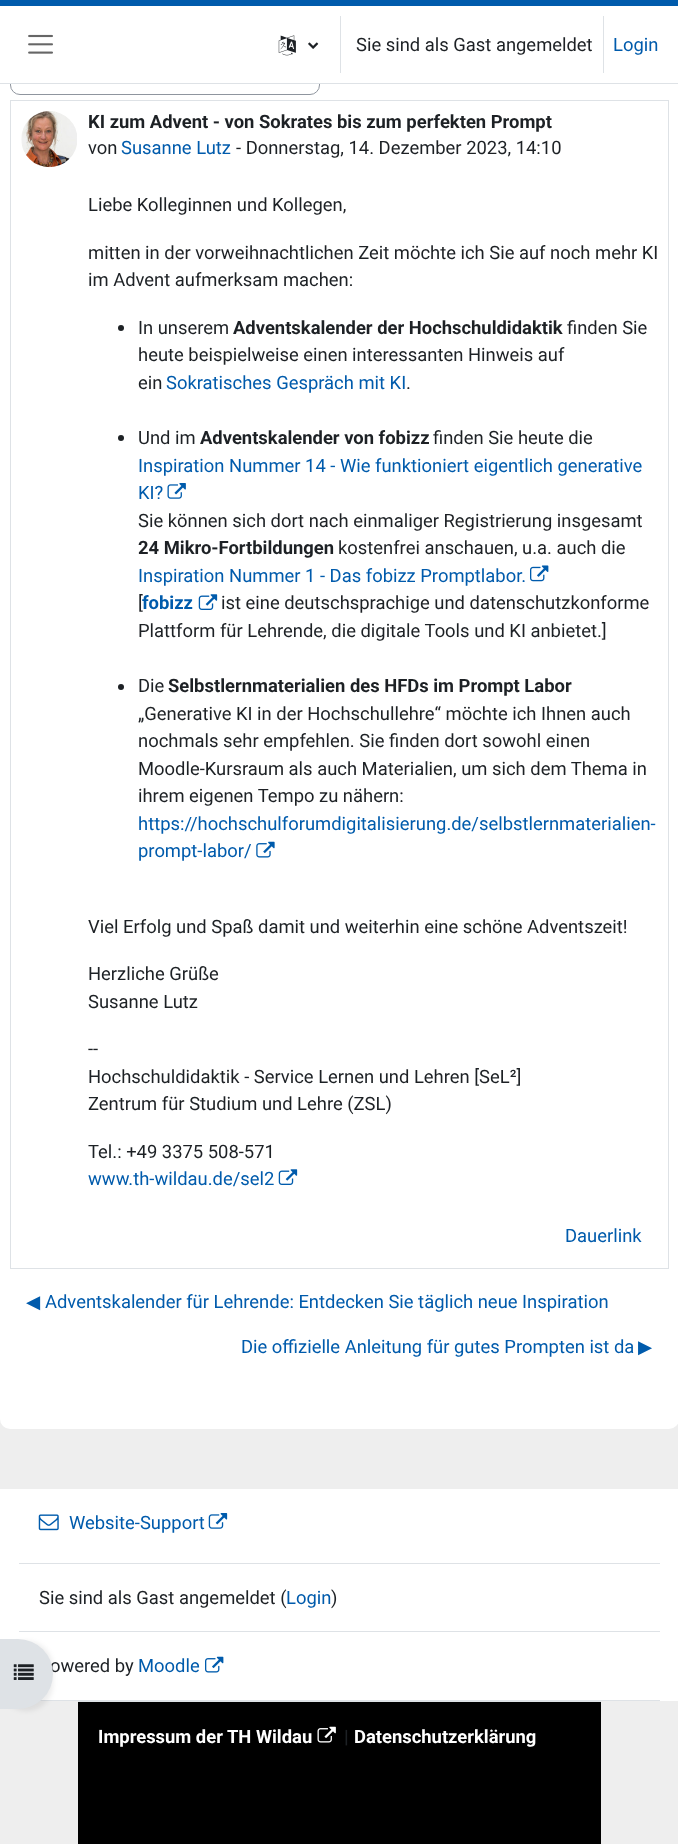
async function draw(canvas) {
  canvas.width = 678
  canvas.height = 1844
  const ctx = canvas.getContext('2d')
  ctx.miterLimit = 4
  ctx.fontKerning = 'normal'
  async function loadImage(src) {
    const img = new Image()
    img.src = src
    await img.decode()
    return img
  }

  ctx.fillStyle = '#eee'
  ctx.fillRect(0, 0, 678, 1844)
  ctx.fillStyle = '#fff'
  ctx.beginPath()
  ctx.roundRect(0, -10, 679, 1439, 10)
  ctx.fill()
  ctx.beginPath()
  ctx.roundRect(10.5, 50.5, 309, 44, 9.5)
  ctx.strokeStyle = '#8f959e'
  ctx.stroke()
  ctx.fillRect(10, 50, 310, 33)
  ctx.fillStyle = '#005bac'
  ctx.fillRect(0, 0, 678, 6)
  ctx.fillStyle = '#dee2e6'
  ctx.fillRect(0, 83, 678, 1)
  ctx.drawImage(await loadImage('image0.png'), 28, 34, 25, 20)
  ctx.drawImage(await loadImage('image1.png'), 278, 35, 18, 21)
  ctx.drawImage(await loadImage('image2.png'), 308, 42, 11, 7)
  ctx.fillRect(340, 16, 1, 57)
  ctx.font = '18.4px Roboto'
  ctx.fillStyle = '#1d2125'
  ctx.fillText('Sie sind als Gast angemeldet', 356, 51)
  ctx.fillStyle = '#dee2e6'
  ctx.fillRect(603, 16, 1, 57)
  ctx.fillStyle = '#005bac'
  ctx.fillText('Login', 613, 51)
  ctx.strokeStyle = '#dee2e6'
  ctx.strokeRect(10.5, 100.5, 658, 1168)
  ctx.drawImage(await loadImage('image3.png'), 21, 111, 56, 57)
  ctx.font = 'bold 18.4px Roboto'
  ctx.fillStyle = '#1d2125'
  ctx.fillText('KI zum Advent - von Sokrates bis zum perfekten Prompt', 88, 128)
  ctx.font = '18.4px Roboto'
  ctx.fillText('von', 88, 154)
  ctx.fillStyle = '#005bac'
  ctx.fillText('Susanne Lutz', 121, 154)
  ctx.fillStyle = '#1d2125'
  ctx.fillText('- Donnerstag, 14. Dezember 2023, 14:10', 236, 154)
  ctx.fillText('Liebe Kolleginnen und Kollegen,', 88, 211)
  ctx.fillText('mitten in der vorweihnachtlichen Zeit möchte ich Sie auf noch mehr KI', 88, 259)
  ctx.fillText('im Advent aufmerksam machen:', 88, 286)
  ctx.beginPath()
  ctx.arc(121, 328, 3, 0, 2 * Math.PI)
  ctx.fill()
  ctx.fillText('In unserem', 138, 334)
  ctx.font = 'bold 18.4px Roboto'
  ctx.fillText('Adventskalender der Hochschuldidaktik', 233, 334)
  ctx.font = '18.4px Roboto'
  ctx.fillText('finden Sie', 567, 334)
  ctx.fillText('heute beispielweise einen interessanten Hinweis auf', 138, 361)
  ctx.fillText('ein', 138, 389)
  ctx.fillStyle = '#005bac'
  ctx.fillText('Sokratisches Gespräch mit KI', 166, 389)
  ctx.fillStyle = '#1d2125'
  ctx.fillText('.', 406, 389)
  ctx.beginPath()
  ctx.arc(121, 438, 3, 0, 2 * Math.PI)
  ctx.fill()
  ctx.fillText('Und im', 138, 444)
  ctx.font = 'bold 18.4px Roboto'
  ctx.fillText('Adventskalender von fobizz', 200, 444)
  ctx.font = '18.4px Roboto'
  ctx.fillText('finden Sie heute die', 433, 444)
  ctx.fillStyle = '#005bac'
  ctx.fillText('Inspiration Nummer 14 - Wie funktioniert eigentlich generative', 138, 472)
  ctx.fillText('KI?', 138, 499)
  ctx.drawImage(await loadImage('image4.png'), 167, 483, 19, 16)
  ctx.fillStyle = '#1d2125'
  ctx.fillText('Sie können sich dort nach einmaliger Registrierung insgesamt', 138, 527)
  ctx.font = 'bold 18.4px Roboto'
  ctx.fillText('24 Mikro-Fortbildungen', 138, 554)
  ctx.font = '18.4px Roboto'
  ctx.fillText('kostenfrei anschauen, u.a. auch die', 338, 554)
  ctx.fillStyle = '#005bac'
  ctx.fillText('Inspiration Nummer 1 - Das fobizz Promptlabor.', 138, 582)
  ctx.drawImage(await loadImage('image5.png'), 530, 565, 19, 17)
  ctx.fillStyle = '#1d2125'
  ctx.fillText('[', 138, 609)
  ctx.font = 'bold 18.4px Roboto'
  ctx.fillStyle = '#005bac'
  ctx.fillText('fobizz', 142, 609)
  ctx.drawImage(await loadImage('image6.png'), 198, 594, 20, 16)
  ctx.font = '18.4px Roboto'
  ctx.fillStyle = '#1d2125'
  ctx.fillText('ist eine deutschsprachige und datenschutzkonforme', 221, 609)
  ctx.fillText('Plattform für Lehrende, die digitale Tools und KI anbietet.]', 138, 637)
  ctx.beginPath()
  ctx.arc(121, 687, 3, 0, 2 * Math.PI)
  ctx.fill()
  ctx.fillText('Die', 138, 692)
  ctx.font = 'bold 18.4px Roboto'
  ctx.fillText('Selbstlernmaterialien des HFDs im Prompt Labor', 168, 692)
  ctx.font = '18.4px Roboto'
  ctx.fillText('„Generative KI in der Hochschullehre“ möchte ich Ihnen auch', 138, 720)
  ctx.fillText('nochmals sehr empfehlen. Sie finden dort sowohl einen', 138, 747)
  ctx.fillText('Moodle-Kursraum als auch Materialien, um sich dem Thema in', 138, 775)
  ctx.fillText('ihrem eigenen Tempo zu nähern:', 138, 802)
  ctx.fillStyle = '#005bac'
  ctx.fillText('https://hochschulforumdigitalisierung.de/selbstlernmaterialien-', 138, 830)
  ctx.fillText('prompt-labor/', 138, 857)
  ctx.drawImage(await loadImage('image7.png'), 256, 841, 19, 17)
  ctx.fillStyle = '#1d2125'
  ctx.fillText('Viel Erfolg und Spaß damit und weiterhin eine schöne Adventszeit!', 88, 933)
  ctx.fillText('Herzliche Grüße', 88, 980)
  ctx.fillText('Susanne Lutz', 88, 1008)
  ctx.fillText('--', 88, 1055)
  ctx.fillText('Hochschuldidaktik - Service Lernen und Lehren [SeL²]', 88, 1083)
  ctx.fillText('Zentrum für Studium und Lehre (ZSL)', 88, 1110)
  ctx.fillText('Tel.: +49 3375 508-571', 88, 1158)
  ctx.fillStyle = '#005bac'
  ctx.fillText('www.th-wildau.de/sel2', 88, 1185)
  ctx.drawImage(await loadImage('image6.png'), 278, 1169, 20, 16)
  ctx.fillText('Dauerlink', 565, 1242)
  ctx.font = '18.4px DejaVu Sans'
  ctx.fillText('◀︎', 26, 1308)
  ctx.font = '18.4px Roboto'
  ctx.fillText('Adventskalender für Lehrende: Entdecken Sie täglich neue Inspiration', 45, 1308)
  ctx.fillText('Die offizielle Anleitung für gutes Prompten ist da', 241, 1353)
  ctx.font = '18.4px DejaVu Sans'
  ctx.fillText('▶︎', 638, 1353)
  ctx.fillStyle = '#fff'
  ctx.fillRect(0, 1489, 678, 212)
  ctx.fillStyle = '#dee2e6'
  ctx.fillRect(40, 1700, 620, 1)
  ctx.fillStyle = '#00000012'
  ctx.filter = 'blur(2.5px)'
  ctx.beginPath()
  ctx.roundRect(0, 1641, 53, 70, 35)
  ctx.fill()
  ctx.filter = 'none'
  ctx.font = '18.4px Roboto'
  ctx.fillStyle = '#1d2125'
  ctx.fillText('owered by', 50, 1672)
  ctx.fillStyle = '#dee2e6'
  ctx.beginPath()
  ctx.roundRect(0, 1639, 53, 70, [0, 35, 35, 0])
  ctx.fill()
  ctx.drawImage(await loadImage('image8.png'), 13, 1664, 21, 16)
  ctx.fillRect(19, 1563, 641, 1)
  ctx.drawImage(await loadImage('image9.png'), 38, 1514, 21, 17)
  ctx.fillStyle = '#005bac'
  ctx.fillText('Website-Support', 69, 1529)
  ctx.drawImage(await loadImage('image10.png'), 208, 1513, 20, 16)
  ctx.fillStyle = '#dee2e6'
  ctx.fillRect(19, 1631, 641, 1)
  ctx.fillStyle = '#1d2125'
  ctx.fillText('Sie sind als Gast angemeldet (', 39, 1604)
  ctx.fillStyle = '#005bac'
  ctx.fillText('Login', 286, 1604)
  ctx.fillStyle = '#1d2125'
  ctx.fillText(')', 331, 1604)
  ctx.fillStyle = '#005bac'
  ctx.fillText('Moodle', 138, 1672)
  ctx.drawImage(await loadImage('image11.png'), 205, 1656, 19, 17)
  ctx.fillStyle = '#000'
  ctx.fillRect(78, 1702, 523, 142)
  ctx.fillStyle = '#dee2e6'
  ctx.fillRect(78, 1701, 523, 1)
  ctx.font = 'bold 18.4px Roboto'
  ctx.fillStyle = '#fff'
  ctx.fillText('Impressum der TH Wildau', 98, 1743)
  ctx.drawImage(await loadImage('image12.png'), 317, 1726, 19, 17)
  ctx.fillStyle = '#1d2125'
  ctx.fillText('|', 344, 1743)
  ctx.fillStyle = '#fff'
  ctx.fillText('Datenschutzerklärung', 354, 1743)
}

draw(document.querySelector('canvas'))
